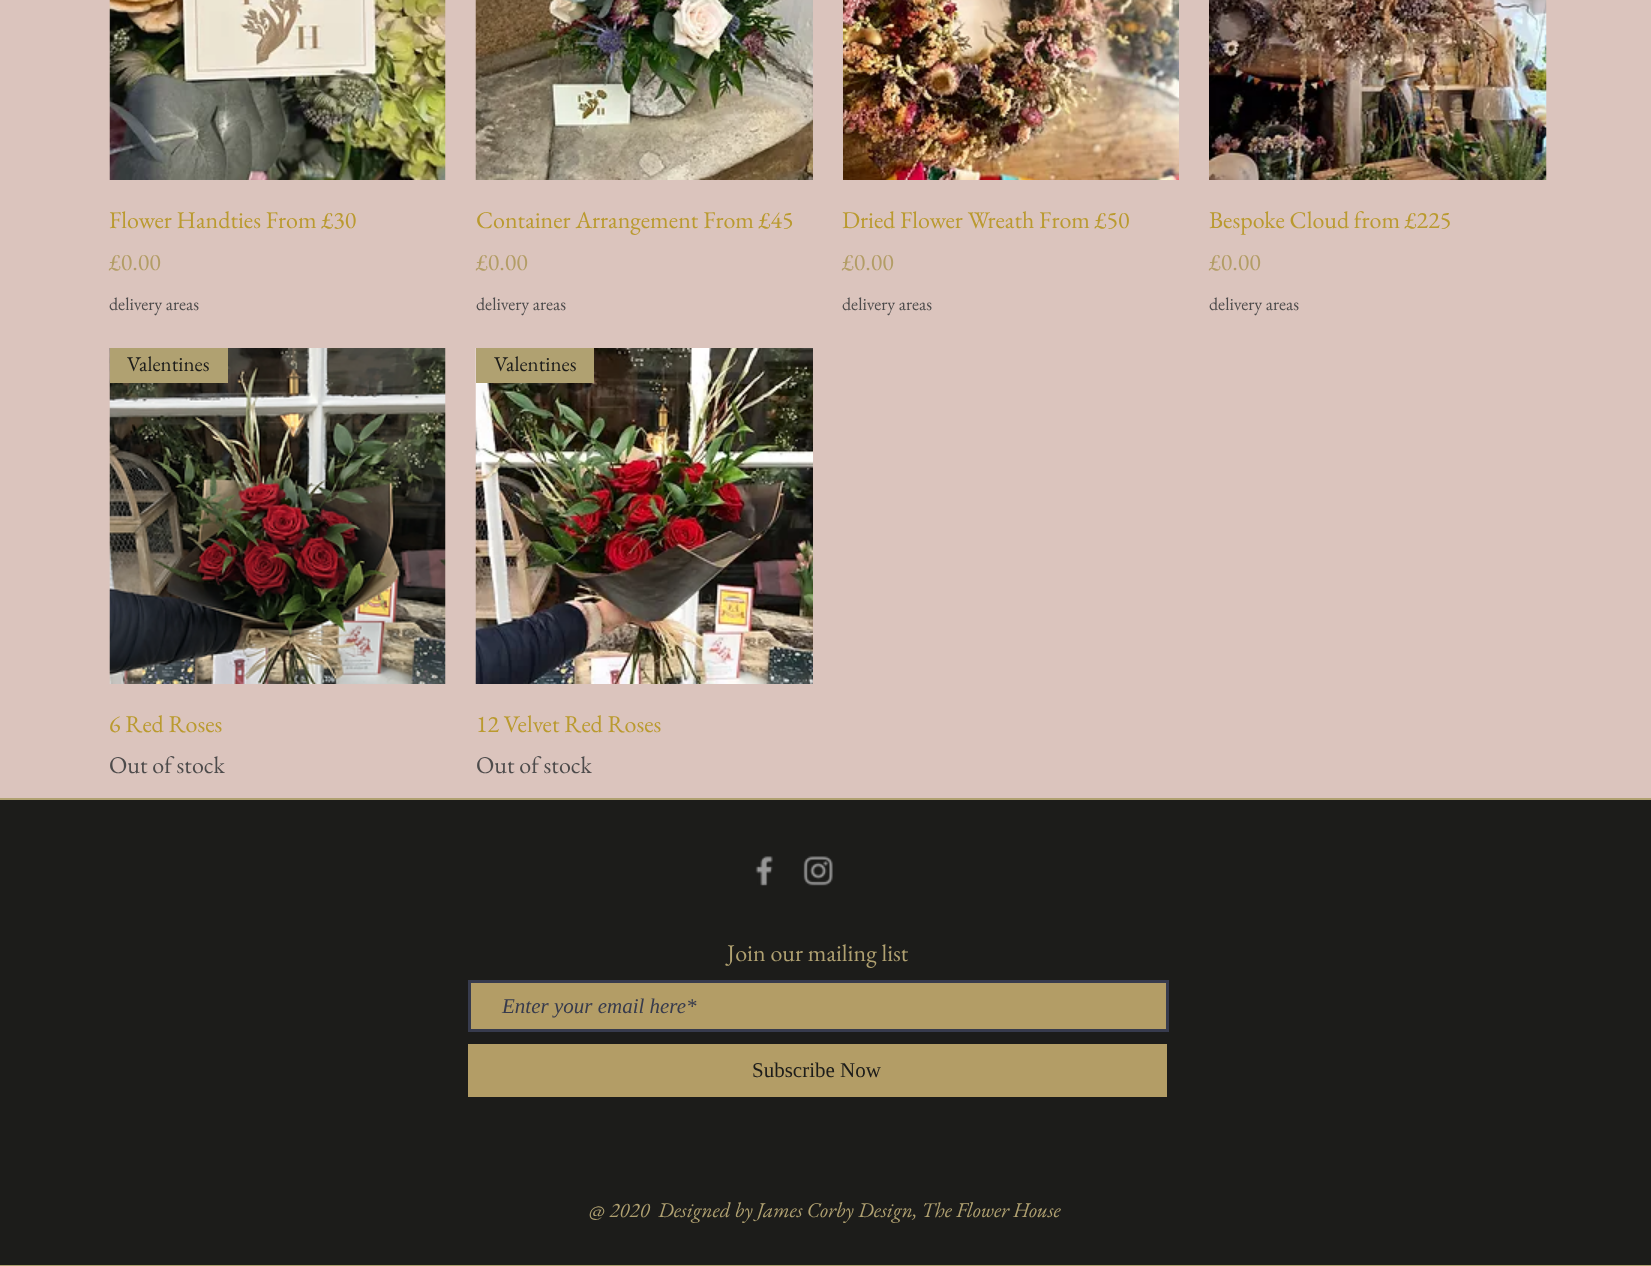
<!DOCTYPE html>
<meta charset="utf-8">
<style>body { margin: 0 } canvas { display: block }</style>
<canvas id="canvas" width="1651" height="1266"></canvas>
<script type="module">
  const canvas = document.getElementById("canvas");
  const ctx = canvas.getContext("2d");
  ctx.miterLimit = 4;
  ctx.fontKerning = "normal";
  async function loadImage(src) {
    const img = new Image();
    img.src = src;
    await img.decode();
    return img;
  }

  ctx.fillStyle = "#dbc4bd";
  ctx.fillRect(0, 0, 1651, 1266);
  ctx.drawImage(await loadImage("img1.png"), 109, 0, 337, 180);
  ctx.font = "24px EB Garamond";
  ctx.fillStyle = "#ba9a2f";
  ctx.fillText("Flower Handties From £30", 109, 228);
  ctx.fillStyle = "#b39d66";
  ctx.fillText("£0.00", 109, 270);
  ctx.font = "18px EB Garamond";
  ctx.fillStyle = "#4d4b4b";
  ctx.fillText("delivery areas", 109, 310);
  ctx.drawImage(await loadImage("img2.png"), 475, 0, 338, 180);
  ctx.font = "24px EB Garamond";
  ctx.fillStyle = "#ba9a2f";
  ctx.fillText("Container Arrangement From £45", 476, 228);
  ctx.fillStyle = "#b39d66";
  ctx.fillText("£0.00", 476, 270);
  ctx.font = "18px EB Garamond";
  ctx.fillStyle = "#4d4b4b";
  ctx.fillText("delivery areas", 476, 310);
  ctx.drawImage(await loadImage("img3.png"), 843, 0, 336, 180);
  ctx.font = "24px EB Garamond";
  ctx.fillStyle = "#ba9a2f";
  ctx.fillText("Dried Flower Wreath From £50", 842, 228);
  ctx.fillStyle = "#b39d66";
  ctx.fillText("£0.00", 842, 270);
  ctx.font = "18px EB Garamond";
  ctx.fillStyle = "#4d4b4b";
  ctx.fillText("delivery areas", 842, 310);
  ctx.drawImage(await loadImage("img4.png"), 1209, 0, 338, 180);
  ctx.font = "24px EB Garamond";
  ctx.fillStyle = "#ba9a2f";
  ctx.fillText("Bespoke Cloud from £225", 1209, 228);
  ctx.fillStyle = "#b39d66";
  ctx.fillText("£0.00", 1209, 270);
  ctx.font = "18px EB Garamond";
  ctx.fillStyle = "#4d4b4b";
  ctx.fillText("delivery areas", 1209, 310);
  ctx.drawImage(await loadImage("img5.png"), 109, 348, 337, 336);
  ctx.fillStyle = "#b0a171";
  ctx.fillRect(110, 348, 118, 35);
  ctx.font = "21px EB Garamond";
  ctx.fillStyle = "#1c1c1a";
  ctx.fillText("Valentines", 127, 371);
  ctx.font = "24px EB Garamond";
  ctx.fillStyle = "#ba9a2f";
  ctx.fillText("6 Red Roses", 109, 732);
  ctx.fillStyle = "#4d4b4b";
  ctx.fillText("Out of stock", 109, 773);
  ctx.drawImage(await loadImage("img6.png"), 475, 348, 338, 336);
  ctx.fillStyle = "#b0a171";
  ctx.fillRect(476, 348, 118, 35);
  ctx.font = "21px EB Garamond";
  ctx.fillStyle = "#1c1c1a";
  ctx.fillText("Valentines", 494, 371);
  ctx.font = "24px EB Garamond";
  ctx.fillStyle = "#ba9a2f";
  ctx.fillText("12 Velvet Red Roses", 476, 732);
  ctx.fillStyle = "#4d4b4b";
  ctx.fillText("Out of stock", 476, 773);
  ctx.fillStyle = "#b0a171";
  ctx.fillRect(0, 798, 1651, 2);
  ctx.fillRect(0, 1265, 1651, 1);
  ctx.fillStyle = "#1c1c1a";
  ctx.fillRect(0, 800, 1651, 465);
  ctx.drawImage(await loadImage("img7.png"), 755, 856, 18, 30);
  ctx.drawImage(await loadImage("img8.png"), 803, 856, 30, 30);
  ctx.fillStyle = "#b0a171";
  ctx.fillText("Join our mailing list", 727, 961);
  ctx.fillStyle = "#b39d66";
  ctx.beginPath();
  ctx.rect(469.5, 981.5, 698, 49);
  ctx.fill();
  ctx.strokeStyle = "#373b4d";
  ctx.lineWidth = 3;
  ctx.stroke();
  ctx.font = "italic 21px Liberation Serif";
  ctx.fillStyle = "#373b4d";
  ctx.fillText("Enter your email here*", 502, 1013);
  ctx.fillStyle = "#b39d66";
  ctx.fillRect(468, 1044, 699, 53);
  ctx.font = "21px Liberation Serif";
  ctx.fillStyle = "#1c1c1a";
  ctx.fillText("Subscribe Now", 752, 1077);
  ctx.font = "italic 21px EB Garamond";
  ctx.fillStyle = "#b0a171";
  ctx.fillText("@ 2020  Designed by James Corby Design, The Flower House", 589, 1217);
</script>
